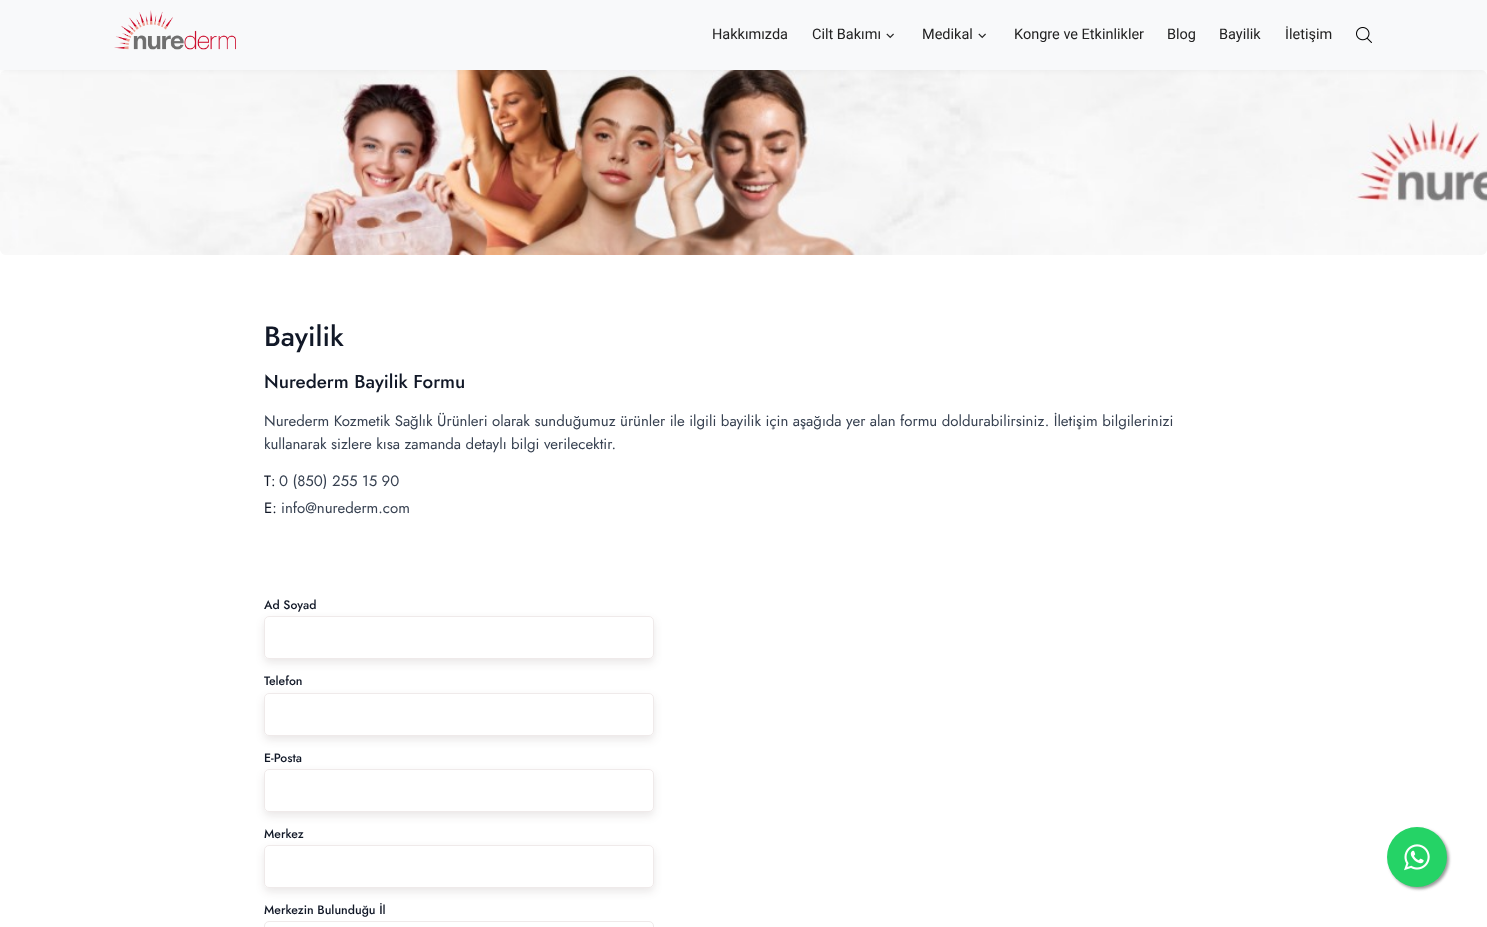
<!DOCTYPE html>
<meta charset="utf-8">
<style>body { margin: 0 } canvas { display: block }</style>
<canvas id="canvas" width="1487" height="927"></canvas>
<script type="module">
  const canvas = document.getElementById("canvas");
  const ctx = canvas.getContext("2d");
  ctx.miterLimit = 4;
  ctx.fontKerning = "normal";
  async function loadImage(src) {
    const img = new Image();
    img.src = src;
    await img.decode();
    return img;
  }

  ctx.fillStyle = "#ffffff";
  ctx.fillRect(0, 0, 1487, 927);
  ctx.drawImage(await loadImage("img4.png"), 0, 70, 1487, 185);
  ctx.fillStyle = "rgba(0, 0, 0, 0.04)";
  ctx.filter = "blur(2.5px)";
  ctx.beginPath();
  ctx.rect(0, 1, 1487, 70);
  ctx.fill();
  ctx.filter = "none";
  ctx.fillStyle = "#f8f9fa";
  ctx.fillRect(0, 0, 1487, 70);
  ctx.drawImage(await loadImage("img1.png"), 114, 10, 122, 40);
  ctx.font = "14.5px Roboto";
  ctx.fillStyle = "#222222";
  ctx.fillText("Hakkımızda", 712, 39);
  ctx.fillText("Cilt Bakımı", 812, 39);
  ctx.drawImage(await loadImage("img2.png"), 886, 33, 8, 6);
  ctx.fillText("Medikal", 922, 39);
  ctx.drawImage(await loadImage("img2.png"), 978, 33, 8, 6);
  ctx.fillText("Kongre ve Etkinlikler", 1014, 39);
  ctx.fillText("Blog", 1167, 39);
  ctx.fillText("Bayilik", 1219, 39);
  ctx.fillText("İletişim", 1285, 39);
  ctx.drawImage(await loadImage("img3.png"), 1356, 27, 16, 16);
  ctx.font = "500 28px Jost";
  ctx.fillStyle = "#111827";
  ctx.fillText("Bayilik", 264, 346);
  ctx.font = "500 18.75px Jost";
  ctx.fillText("Nurederm Bayilik Formu", 264, 388);
  ctx.font = "15px Jost";
  ctx.fillStyle = "#374151";
  ctx.fillText("Nurederm Kozmetik Sağlık Ürünleri olarak sunduğumuz ürünler ile ilgili bayilik için aşağıda yer alan formu doldurabilirsiniz. İletişim bilgilerinizi", 264, 426);
  ctx.fillText("kullanarak sizlere kısa zamanda detaylı bilgi verilecektir.", 264, 449);
  ctx.fillStyle = "#111827";
  ctx.fillText("T:", 264, 486);
  ctx.fillStyle = "#374151";
  ctx.fillText("0 (850) 255 15 90", 279, 486);
  ctx.fillStyle = "#111827";
  ctx.fillText("E:", 264, 513);
  ctx.fillStyle = "#374151";
  ctx.fillText("info@nurederm.com", 281, 513);
  ctx.font = "500 12.25px Jost";
  ctx.fillStyle = "#111827";
  ctx.fillText("Ad Soyad", 264, 609);
  ctx.fillStyle = "rgba(50, 25, 25, 0.1)";
  ctx.filter = "blur(4px)";
  ctx.beginPath();
  ctx.roundRect(264, 620, 390, 43, 5);
  ctx.fill();
  ctx.filter = "none";
  ctx.fillStyle = "#ffffff";
  ctx.beginPath();
  ctx.roundRect(264, 616, 390, 43, 5);
  ctx.fill();
  ctx.beginPath();
  ctx.roundRect(264.5, 616.5, 389, 42, 4.5);
  ctx.strokeStyle = "rgba(231, 223, 223, 0.66)";
  ctx.stroke();
  ctx.fillStyle = "#111827";
  ctx.fillText("Telefon", 264, 685);
  ctx.fillStyle = "rgba(50, 25, 25, 0.1)";
  ctx.filter = "blur(4px)";
  ctx.beginPath();
  ctx.roundRect(264, 697, 390, 43, 5);
  ctx.fill();
  ctx.filter = "none";
  ctx.fillStyle = "#ffffff";
  ctx.beginPath();
  ctx.roundRect(264, 693, 390, 43, 5);
  ctx.fill();
  ctx.beginPath();
  ctx.roundRect(264.5, 693.5, 389, 42, 4.5);
  ctx.stroke();
  ctx.fillStyle = "#111827";
  ctx.fillText("E-Posta", 264, 762);
  ctx.fillStyle = "rgba(50, 25, 25, 0.1)";
  ctx.filter = "blur(4px)";
  ctx.beginPath();
  ctx.roundRect(264, 773, 390, 43, 5);
  ctx.fill();
  ctx.filter = "none";
  ctx.fillStyle = "#ffffff";
  ctx.beginPath();
  ctx.roundRect(264, 769, 390, 43, 5);
  ctx.fill();
  ctx.beginPath();
  ctx.roundRect(264.5, 769.5, 389, 42, 4.5);
  ctx.stroke();
  ctx.fillStyle = "#111827";
  ctx.fillText("Merkez", 264, 838);
  ctx.fillStyle = "rgba(50, 25, 25, 0.1)";
  ctx.filter = "blur(4px)";
  ctx.beginPath();
  ctx.roundRect(264, 849, 390, 43, 5);
  ctx.fill();
  ctx.filter = "none";
  ctx.fillStyle = "#ffffff";
  ctx.beginPath();
  ctx.roundRect(264, 845, 390, 43, 5);
  ctx.fill();
  ctx.beginPath();
  ctx.roundRect(264.5, 845.5, 389, 42, 4.5);
  ctx.stroke();
  ctx.fillStyle = "#111827";
  ctx.fillText("Merkezin Bulunduğu İl", 264, 914);
  ctx.beginPath();
  ctx.roundRect(264.5, 921.5, 389, 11, 4.5);
  ctx.strokeStyle = "#efeaea";
  ctx.stroke();
  ctx.fillStyle = "#999999";
  ctx.filter = "blur(1.5px)";
  ctx.beginPath();
  ctx.roundRect(1389, 829, 60, 60, 30);
  ctx.fill();
  ctx.filter = "none";
  ctx.fillStyle = "#25d366";
  ctx.beginPath();
  ctx.arc(1417, 857, 30, 0, Math.PI * 2);
  ctx.fill();
  ctx.drawImage(await loadImage("img5.png"), 1404, 844, 26, 27);
</script>
